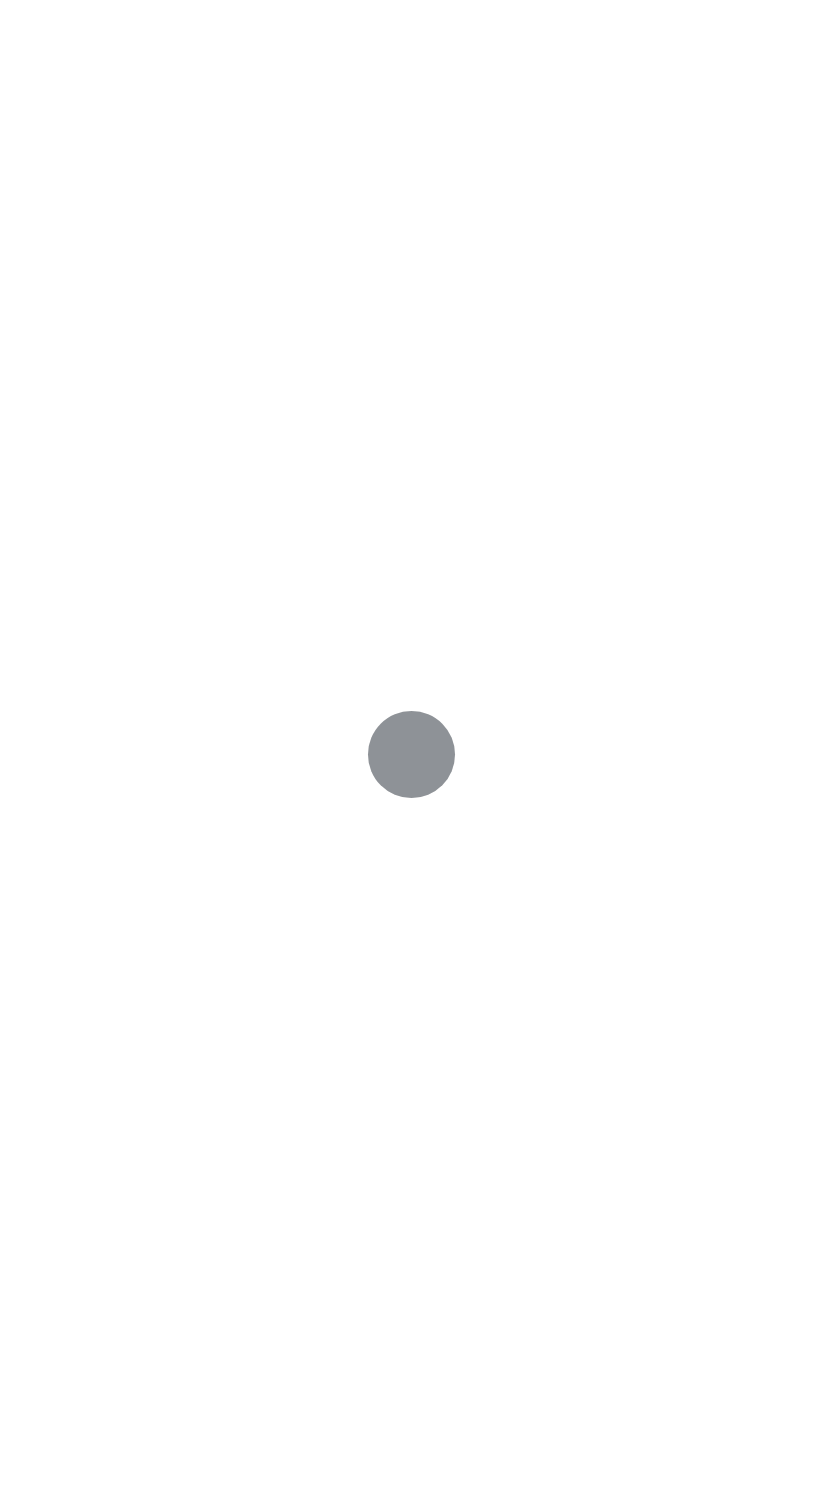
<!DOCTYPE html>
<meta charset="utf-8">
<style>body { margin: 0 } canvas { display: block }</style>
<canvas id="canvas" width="821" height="1507"></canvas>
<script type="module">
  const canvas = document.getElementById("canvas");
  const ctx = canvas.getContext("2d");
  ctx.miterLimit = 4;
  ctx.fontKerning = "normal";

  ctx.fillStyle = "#ffffff";
  ctx.fillRect(0, 0, 821, 1507);
  ctx.fillStyle = "#e2e2e2";
  ctx.beginPath();
  ctx.arc(411.5, 754.5, 43.5, 0, Math.PI * 2);
  ctx.fill();
  ctx.fillStyle = "rgba(86, 94, 102, 0.6)";
  ctx.beginPath();
  ctx.arc(411.5, 754.5, 43.5, 0, Math.PI * 2);
  ctx.fill();
</script>
